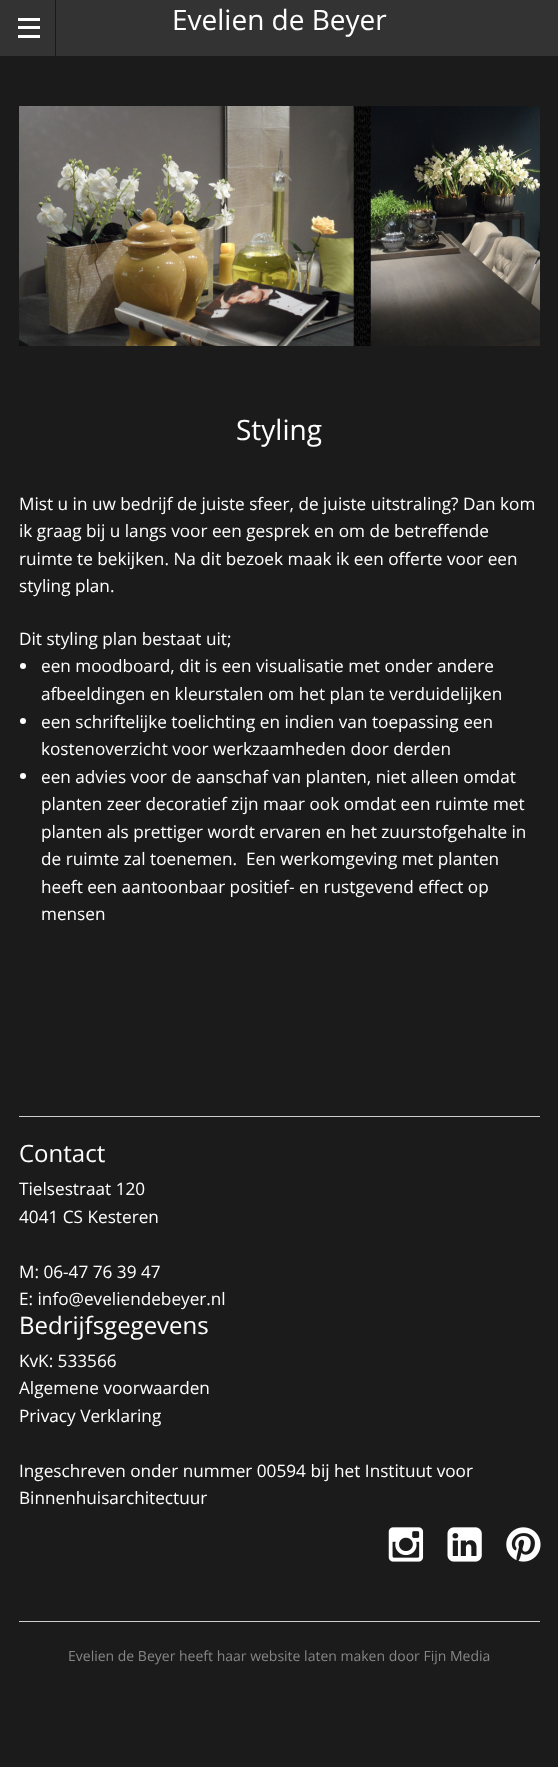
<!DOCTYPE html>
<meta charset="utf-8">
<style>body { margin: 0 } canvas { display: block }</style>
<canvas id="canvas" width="558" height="1767"></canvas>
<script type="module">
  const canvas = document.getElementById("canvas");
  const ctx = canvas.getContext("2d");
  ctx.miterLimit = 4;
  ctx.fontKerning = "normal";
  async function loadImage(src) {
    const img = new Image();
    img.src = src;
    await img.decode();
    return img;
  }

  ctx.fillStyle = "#1b1b1b";
  ctx.fillRect(0, 0, 558, 1767);
  ctx.fillStyle = "#333333";
  ctx.fillRect(0, 0, 558, 56);
  ctx.fillStyle = "#1a1a1a";
  ctx.fillRect(55, 0, 1, 56);
  ctx.fillStyle = "#ffffff";
  ctx.fillRect(18, 35, 22, 3);
  ctx.fillRect(18, 26, 22, 3);
  ctx.fillRect(18, 18, 22, 3);
  ctx.font = "28px Open Sans";
  ctx.fillText("Evelien de Beyer", 172, 30);
  ctx.drawImage(await loadImage("img1.png"), 19, 106, 521, 240);
  ctx.fillText("Styling", 236, 440);
  ctx.font = "17.2px Open Sans";
  ctx.fillText("Mist u in uw bedrijf de juiste sfeer, de juiste uitstraling? Dan kom", 19, 510);
  ctx.fillText("ik graag bij u langs voor een gesprek en om de betreffende", 19, 537);
  ctx.fillText("ruimte te bekijken. Na dit bezoek maak ik een offerte voor een", 19, 565);
  ctx.fillText("styling plan.", 19, 592);
  ctx.fillText("Dit styling plan bestaat uit;", 19, 645);
  ctx.beginPath();
  ctx.arc(23, 666, 3, 0, Math.PI * 2);
  ctx.fill();
  ctx.fillText("een moodboard, dit is een visualisatie met onder andere", 41, 672);
  ctx.fillText("afbeeldingen en kleurstalen om het plan te verduidelijken", 41, 700);
  ctx.beginPath();
  ctx.arc(23, 721, 3, 0, Math.PI * 2);
  ctx.fill();
  ctx.fillText("een schriftelijke toelichting en indien van toepassing een", 41, 728);
  ctx.fillText("kostenoverzicht voor werkzaamheden door derden", 41, 755);
  ctx.beginPath();
  ctx.arc(23, 776, 3, 0, Math.PI * 2);
  ctx.fill();
  ctx.fillText("een advies voor de aanschaf van planten, niet alleen omdat", 41, 783);
  ctx.fillText("planten zeer decoratief zijn maar ook omdat een ruimte met", 41, 810);
  ctx.fillText("planten als prettiger wordt ervaren en het zuurstofgehalte in", 41, 838);
  ctx.fillText("de ruimte zal toenemen.  Een werkomgeving met planten", 41, 865);
  ctx.fillText("heeft een aantoonbaar positief- en rustgevend effect op", 41, 893);
  ctx.fillText("mensen", 41, 920);
  ctx.fillStyle = "#cecece";
  ctx.fillRect(19, 1116, 521, 1);
  ctx.font = "24px Open Sans";
  ctx.fillStyle = "#ffffff";
  ctx.fillText("Contact", 19, 1162);
  ctx.font = "17.2px Open Sans";
  ctx.fillText("Tielsestraat 120", 19, 1195);
  ctx.fillText("4041 CS Kesteren", 19, 1223);
  ctx.fillText("M: 06-47 76 39 47", 19, 1278);
  ctx.fillText("E: info@eveliendebeyer.nl", 19, 1305);
  ctx.font = "24px Open Sans";
  ctx.fillText("Bedrijfsgegevens", 19, 1334);
  ctx.font = "17.2px Open Sans";
  ctx.fillText("KvK: 533566", 19, 1367);
  ctx.fillText("Algemene voorwaarden", 19, 1394);
  ctx.fillText("Privacy Verklaring", 19, 1422);
  ctx.fillText("Ingeschreven onder nummer 00594 bij het Instituut voor", 19, 1477);
  ctx.fillText("Binnenhuisarchitectuur", 19, 1504);
  ctx.drawImage(await loadImage("img2.png"), 388, 1527, 36, 35);
  ctx.drawImage(await loadImage("img3.png"), 447, 1527, 35, 35);
  ctx.drawImage(await loadImage("img4.png"), 506, 1527, 35, 35);
  ctx.fillStyle = "#cecece";
  ctx.fillRect(19, 1621, 521, 1);
  ctx.font = "14px Open Sans";
  ctx.fillStyle = "#868686";
  ctx.fillText("Evelien de Beyer heeft haar website laten maken door Fijn Media", 68, 1661);
</script>
